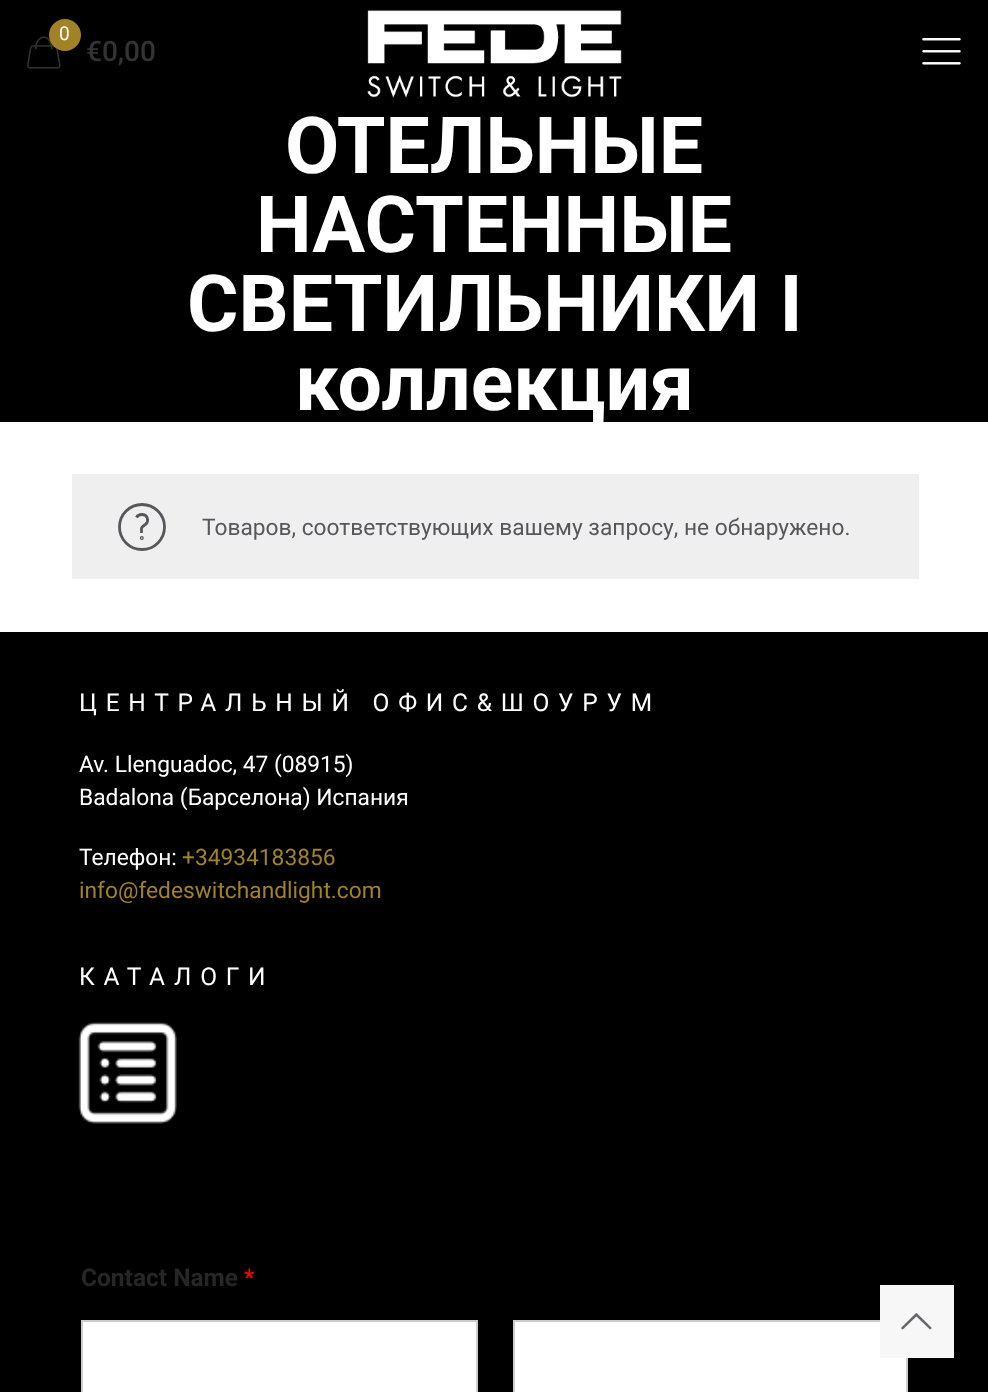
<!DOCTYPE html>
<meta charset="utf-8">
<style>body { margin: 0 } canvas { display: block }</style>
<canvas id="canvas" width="988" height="1392"></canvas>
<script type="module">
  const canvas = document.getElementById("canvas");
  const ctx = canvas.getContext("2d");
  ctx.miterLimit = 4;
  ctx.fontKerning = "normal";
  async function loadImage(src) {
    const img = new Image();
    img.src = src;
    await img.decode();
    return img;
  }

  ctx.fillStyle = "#ffffff";
  ctx.fillRect(0, 0, 988, 1392);
  ctx.fillStyle = "#000000";
  ctx.fillRect(0, 0, 988, 422);
  ctx.drawImage(await loadImage("img1.png"), 27, 36, 34, 33);
  ctx.fillStyle = "#a18226";
  ctx.beginPath();
  ctx.arc(65, 35, 16, 0, Math.PI * 2);
  ctx.fill();
  ctx.font = "19px Roboto";
  ctx.fillStyle = "#ffffff";
  ctx.fillText("0", 59, 40);
  ctx.font = "500 28px Roboto";
  ctx.fillStyle = "#333333";
  ctx.fillText("€0,00", 86, 61);
  ctx.drawImage(await loadImage("img2.png"), 367, 10, 255, 88);
  ctx.drawImage(await loadImage("img3.png"), 922, 38, 39, 27);
  ctx.font = "bold 78.75px Roboto";
  ctx.fillStyle = "#ffffff";
  ctx.fillText("ОТЕЛЬНЫЕ", 285, 173);
  ctx.fillText("НАСТЕННЫЕ", 256, 252);
  ctx.fillText("СВЕТИЛЬНИКИ I", 187, 331);
  ctx.fillText("коллекция", 295, 410);
  ctx.fillStyle = "#efefef";
  ctx.fillRect(72, 474, 847, 105);
  ctx.beginPath();
  ctx.arc(142, 527, 22.5, 0, Math.PI * 2);
  ctx.strokeStyle = "#57575b";
  ctx.lineWidth = 2.8;
  ctx.stroke();
  ctx.beginPath();
  ctx.moveTo(136.5, 517.5);
  ctx.bezierCurveTo(137.5, 515.5, 140, 514.5, 142, 514.5);
  ctx.bezierCurveTo(147, 514.5, 149.5, 520, 146, 524);
  ctx.bezierCurveTo(145, 525, 141.5, 526.5, 141.5, 528.5);
  ctx.lineTo(141.5, 533);
  ctx.stroke();
  ctx.beginPath();
  ctx.arc(141.8, 538, 0.6, 0, Math.PI * 2);
  ctx.stroke();
  ctx.font = "22.75px Roboto";
  ctx.fillStyle = "#57575b";
  ctx.fillText("Товаров, соответствующих вашему запросу, не обнаружено.", 202, 535);
  ctx.fillStyle = "#000000";
  ctx.fillRect(0, 632, 988, 760);
  ctx.letterSpacing = "8.75px";
  ctx.font = "24.5px Roboto";
  ctx.fillStyle = "#ffffff";
  ctx.fillText("ЦЕНТРАЛЬНЫЙ ОФИС&ШОУРУМ", 79, 711);
  ctx.letterSpacing = "0px";
  ctx.font = "22.75px Roboto";
  ctx.fillText("Av. Llenguadoc, 47 (08915)", 79, 772);
  ctx.fillText("Badalona (Барселона) Испания", 79, 805);
  ctx.fillText("Телефон:", 79, 865);
  ctx.fillStyle = "#a18226";
  ctx.fillText("+34934183856", 182, 865);
  ctx.fillText("info@fedeswitchandlight.com", 79, 898);
  ctx.letterSpacing = "8.75px";
  ctx.font = "24.5px Roboto";
  ctx.fillStyle = "#ffffff";
  ctx.fillText("КАТАЛОГИ", 79, 985);
  ctx.drawImage(await loadImage("img4.png"), 78, 1022, 99, 102);
  ctx.letterSpacing = "0px";
  ctx.font = "bold 24.5px Roboto";
  ctx.fillStyle = "#262626";
  ctx.fillText("Contact Name", 81, 1286);
  ctx.font = "24.5px Roboto";
  ctx.fillStyle = "#ff0000";
  ctx.fillText("*", 244, 1286);
  ctx.fillStyle = "#ffffff";
  ctx.beginPath();
  ctx.rect(82, 1321, 395, 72);
  ctx.fill();
  ctx.strokeStyle = "#cccccc";
  ctx.lineWidth = 2;
  ctx.stroke();
  ctx.beginPath();
  ctx.rect(514, 1321, 393, 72);
  ctx.fill();
  ctx.stroke();
  ctx.fillStyle = "#f7f7f7";
  ctx.fillRect(880, 1285, 74, 73);
  ctx.drawImage(await loadImage("img5.png"), 901, 1313, 31, 17);
</script>
